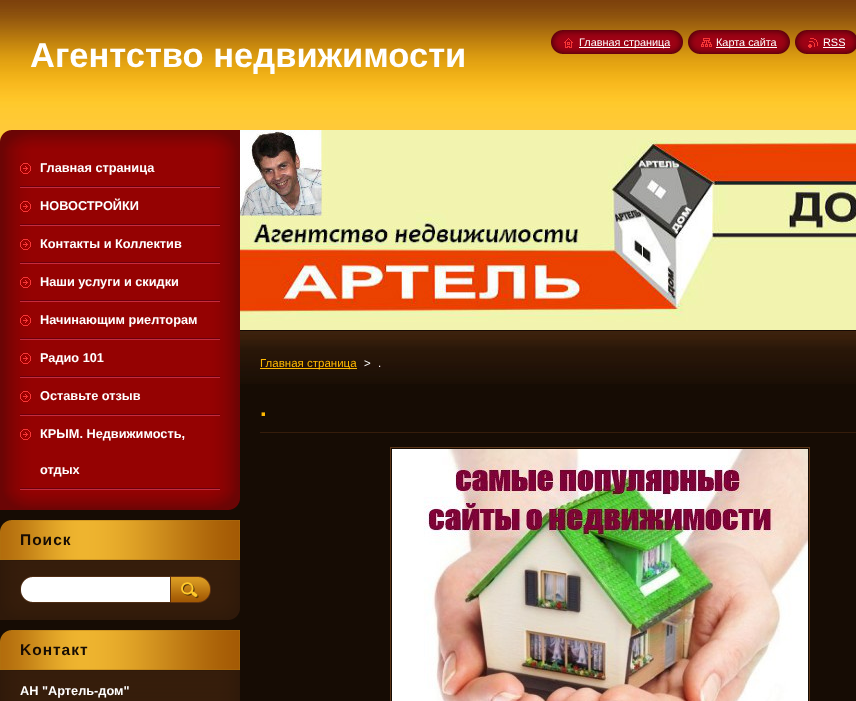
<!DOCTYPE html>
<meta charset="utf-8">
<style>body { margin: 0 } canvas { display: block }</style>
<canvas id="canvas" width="856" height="701"></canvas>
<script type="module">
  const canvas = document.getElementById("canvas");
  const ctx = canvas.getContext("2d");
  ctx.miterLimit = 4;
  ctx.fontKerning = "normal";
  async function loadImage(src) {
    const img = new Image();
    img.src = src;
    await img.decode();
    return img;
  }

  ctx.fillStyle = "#160c04";
  ctx.fillRect(0, 0, 856, 701);
  ctx.drawImage(await loadImage("img1.png"), 0, 0, 856, 384);
  ctx.font = "bold 34.5px Liberation Sans";
  ctx.fillStyle = "#ffffff";
  ctx.fillText("Агентство недвижимости", 30, 67);
  ctx.drawImage(await loadImage("img2.png"), 551, 30, 13, 24);
  ctx.drawImage(await loadImage("img3.png"), 564, 30, 119, 24);
  ctx.drawImage(await loadImage("img4.png"), 564, 38, 9, 10);
  ctx.fillRect(579, 47, 91, 1);
  ctx.font = "10.9px Liberation Sans";
  ctx.fillText("Главная страница", 579, 46);
  ctx.drawImage(await loadImage("img2.png"), 688, 30, 13, 24);
  ctx.drawImage(await loadImage("img5.png"), 701, 30, 89, 24);
  ctx.drawImage(await loadImage("img6.png"), 701, 38, 11, 9);
  ctx.fillRect(716, 47, 61, 1);
  ctx.fillText("Карта сайта", 716, 46);
  ctx.drawImage(await loadImage("img2.png"), 795, 30, 13, 24);
  ctx.drawImage(await loadImage("img7.png"), 808, 30, 48, 24);
  ctx.drawImage(await loadImage("img8.png"), 808, 38, 10, 10);
  ctx.fillText("RSS", 823, 46);
  ctx.fillRect(823, 47, 22, 1);
  ctx.drawImage(await loadImage("img9.png"), 0, 130, 240, 20);
  ctx.drawImage(await loadImage("img10.png"), 0, 490, 240, 20);
  ctx.drawImage(await loadImage("img11.png"), 0, 150, 240, 340);
  ctx.drawImage(await loadImage("img12.png"), 20, 186, 200, 2);
  ctx.drawImage(await loadImage("img13.png"), 20, 163, 11, 11);
  ctx.font = "bold 12.75px Liberation Sans";
  ctx.fillText("Главная страница", 40, 172);
  ctx.drawImage(await loadImage("img12.png"), 20, 224, 200, 2);
  ctx.drawImage(await loadImage("img13.png"), 20, 201, 11, 11);
  ctx.fillText("НОВОСТРОЙКИ", 40, 210);
  ctx.drawImage(await loadImage("img12.png"), 20, 262, 200, 2);
  ctx.drawImage(await loadImage("img13.png"), 20, 239, 11, 11);
  ctx.fillText("Контакты и Коллектив", 40, 248);
  ctx.drawImage(await loadImage("img12.png"), 20, 300, 200, 2);
  ctx.drawImage(await loadImage("img13.png"), 20, 277, 11, 11);
  ctx.fillText("Наши услуги и скидки", 40, 286);
  ctx.drawImage(await loadImage("img12.png"), 20, 338, 200, 2);
  ctx.drawImage(await loadImage("img13.png"), 20, 315, 11, 11);
  ctx.fillText("Начинающим риелторам", 40, 324);
  ctx.drawImage(await loadImage("img12.png"), 20, 376, 200, 2);
  ctx.drawImage(await loadImage("img13.png"), 20, 353, 11, 11);
  ctx.fillText("Радио 101", 40, 362);
  ctx.drawImage(await loadImage("img12.png"), 20, 414, 200, 2);
  ctx.drawImage(await loadImage("img13.png"), 20, 391, 11, 11);
  ctx.fillText("Оставьте отзыв", 40, 400);
  ctx.drawImage(await loadImage("img12.png"), 20, 488, 200, 2);
  ctx.drawImage(await loadImage("img13.png"), 20, 429, 11, 11);
  ctx.fillText("КРЫМ. Недвижимость,", 40, 438);
  ctx.fillText("отдых", 40, 474);
  ctx.drawImage(await loadImage("img14.png"), 0, 603, 240, 17);
  ctx.drawImage(await loadImage("img15.png"), 0, 520, 240, 40);
  ctx.letterSpacing = "1px";
  ctx.font = "bold 15.5px Liberation Sans";
  ctx.fillStyle = "#160c04";
  ctx.fillText("Поиск", 20, 545);
  ctx.drawImage(await loadImage("img16.png"), 0, 561, 240, 42);
  ctx.fillStyle = "#2f1a0a";
  ctx.fillRect(0, 560, 240, 1);
  ctx.drawImage(await loadImage("img17.png"), 20, 576, 150, 27);
  ctx.drawImage(await loadImage("img18.png"), 170, 576, 41, 27);
  ctx.drawImage(await loadImage("img15.png"), 0, 630, 240, 40);
  ctx.fillStyle = "#160c04";
  ctx.fillText("Koнтакт", 20, 655);
  ctx.drawImage(await loadImage("img19.png"), 0, 671, 240, 30);
  ctx.fillStyle = "#2f1a0a";
  ctx.fillRect(0, 670, 240, 1);
  ctx.letterSpacing = "0px";
  ctx.font = "bold 12.75px Liberation Sans";
  ctx.fillStyle = "#ffffff";
  ctx.fillText("АН \"Артель-дом\"", 20, 695);
  ctx.drawImage(await loadImage("img20.png"), 240, 130, 616, 200);
  ctx.fillStyle = "#ffb901";
  ctx.fillRect(260, 368, 97, 1);
  ctx.font = "11.5px Liberation Sans";
  ctx.fillText("Главная страница", 260, 367);
  ctx.fillStyle = "#ffffff";
  ctx.fillText(">", 364, 367);
  ctx.fillText(".", 378, 367);
  ctx.fillStyle = "#361d0b";
  ctx.fillRect(260, 432, 596, 1);
  ctx.font = "bold 24px Liberation Sans";
  ctx.fillStyle = "#ffb901";
  ctx.fillText(".", 260, 416);
  ctx.strokeStyle = "#5b3518";
  ctx.strokeRect(390.5, 447.5, 419, 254);
  ctx.drawImage(await loadImage("img21.png"), 392, 449, 416, 252);
</script>
